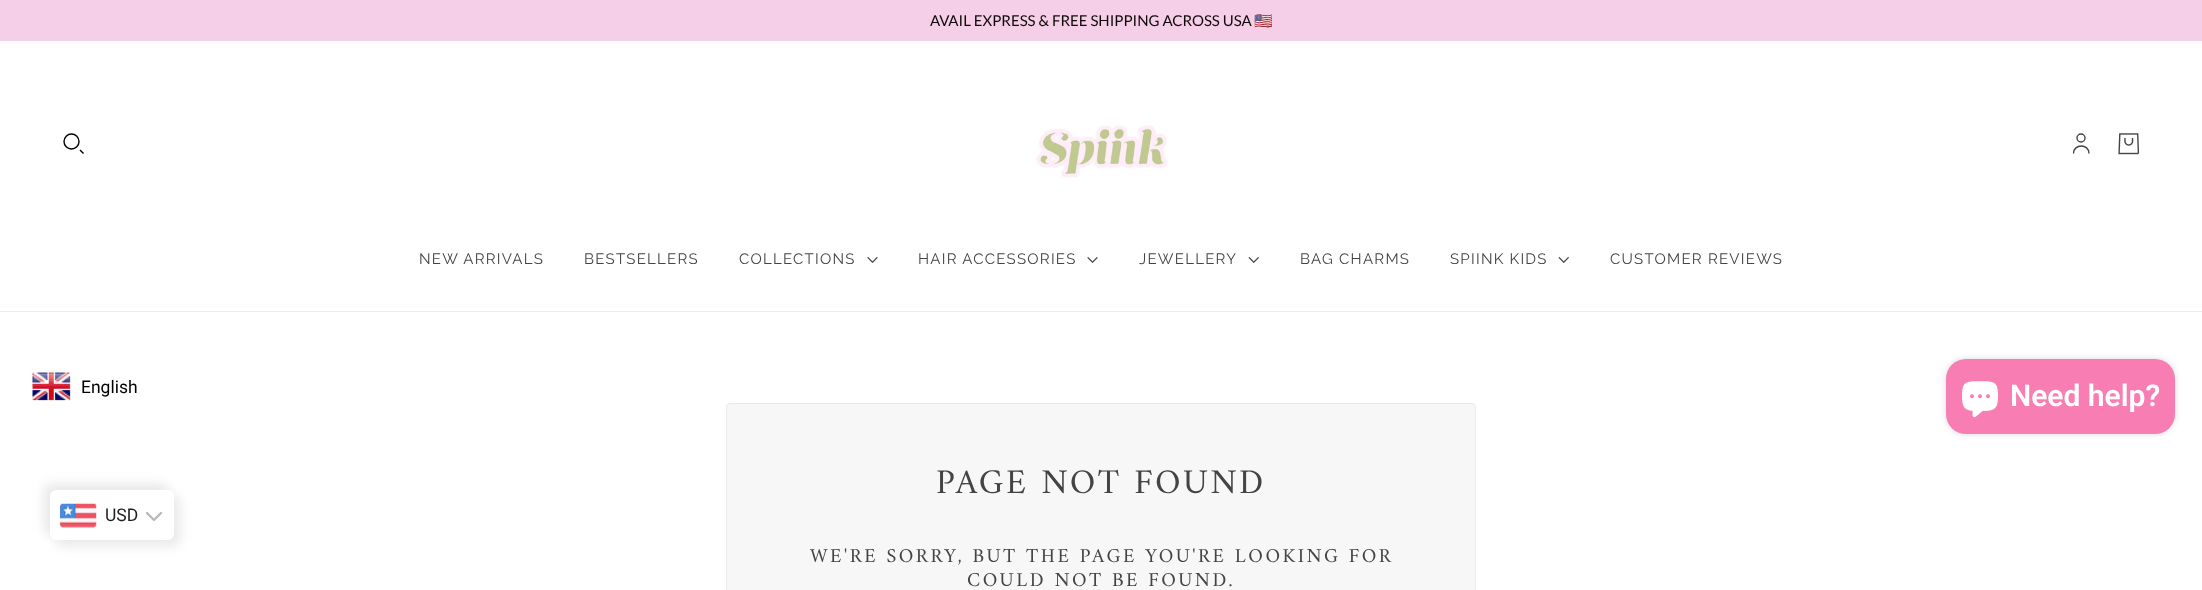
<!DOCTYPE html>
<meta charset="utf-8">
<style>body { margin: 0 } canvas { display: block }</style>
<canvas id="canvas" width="2202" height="590"></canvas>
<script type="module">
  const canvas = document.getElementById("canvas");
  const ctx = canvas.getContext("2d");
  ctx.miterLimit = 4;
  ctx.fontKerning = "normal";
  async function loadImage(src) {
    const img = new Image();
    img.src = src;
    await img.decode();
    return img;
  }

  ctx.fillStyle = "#ffffff";
  ctx.fillRect(0, 0, 2202, 590);
  ctx.fillStyle = "#f5cfe7";
  ctx.fillRect(0, 0, 2202, 41);
  ctx.font = "15px Lato";
  ctx.fillStyle = "#100909";
  ctx.fillText("AVAIL EXPRESS & FREE SHIPPING ACROSS USA", 930, 26);
  ctx.font = "15px Noto Color Emoji";
  ctx.fillText("🇺🇸", 1254, 26);
  ctx.drawImage(await loadImage("img1.png"), 32, 372, 39, 29);
  ctx.font = "17.5px Roboto";
  ctx.fillStyle = "#000000";
  ctx.fillText("English", 81, 393);
  ctx.beginPath();
  ctx.arc(71.5, 141.5, 7.5, 0, Math.PI * 2);
  ctx.strokeStyle = "#000000";
  ctx.lineWidth = 1.4;
  ctx.stroke();
  ctx.beginPath();
  ctx.moveTo(80, 150);
  ctx.lineTo(83.5, 153.5);
  ctx.stroke();
  ctx.drawImage(await loadImage("img2.png"), 1036, 125, 135, 53);
  ctx.beginPath();
  ctx.arc(2081, 138, 4, 0, Math.PI * 2);
  ctx.strokeStyle = "#444444";
  ctx.stroke();
  ctx.beginPath();
  ctx.moveTo(2073.5, 153.5);
  ctx.bezierCurveTo(2073.5, 143.5, 2089, 143.5, 2089, 153.5);
  ctx.stroke();
  ctx.drawImage(await loadImage("img3.png"), 2118, 133, 22, 22);
  ctx.letterSpacing = "1.25px";
  ctx.font = "15px Raleway";
  ctx.fillStyle = "#444444";
  ctx.fillText("NEW ARRIVALS", 419, 264);
  ctx.fillText("BESTSELLERS", 584, 264);
  ctx.fillText("COLLECTIONS", 739, 264);
  ctx.drawImage(await loadImage("img4.png"), 867, 257, 11, 6);
  ctx.fillText("HAIR ACCESSORIES", 918, 264);
  ctx.drawImage(await loadImage("img4.png"), 1087, 257, 11, 6);
  ctx.fillText("JEWELLERY", 1139, 264);
  ctx.drawImage(await loadImage("img5.png"), 1248, 257, 11, 6);
  ctx.fillText("BAG CHARMS", 1300, 264);
  ctx.fillText("SPIINK KIDS", 1450, 264);
  ctx.drawImage(await loadImage("img5.png"), 1558, 257, 11, 6);
  ctx.fillText("CUSTOMER REVIEWS", 1610, 264);
  ctx.fillStyle = "#ececec";
  ctx.fillRect(0, 311, 2202, 1);
  ctx.fillStyle = "#f7f7f7";
  ctx.beginPath();
  ctx.roundRect(726.5, 403.5, 749, 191, 3.5);
  ctx.fill();
  ctx.strokeStyle = "#eaeaea";
  ctx.lineWidth = 1;
  ctx.stroke();
  ctx.letterSpacing = "2.5px";
  ctx.font = "35px Amiri";
  ctx.fillStyle = "#444444";
  ctx.fillText("PAGE NOT FOUND", 936, 493);
  ctx.font = "20px Amiri";
  ctx.fillText("WE'RE SORRY, BUT THE PAGE YOU'RE LOOKING FOR", 810, 562);
  ctx.fillText("COULD NOT BE FOUND.", 967, 586);
  ctx.fillStyle = "rgba(0, 0, 0, 0.15)";
  ctx.filter = "blur(3px)";
  ctx.beginPath();
  ctx.roundRect(1946, 359, 229, 75, 20);
  ctx.fill();
  ctx.filter = "none";
  ctx.fillStyle = "#f77db3";
  ctx.beginPath();
  ctx.roundRect(1946, 359, 229, 75, 20);
  ctx.fill();
  ctx.drawImage(await loadImage("img6.png"), 1962, 381, 36, 37);
  ctx.letterSpacing = "0px";
  ctx.font = "600 30px Roboto";
  ctx.fillStyle = "#ffffff";
  ctx.fillText("Need help?", 2010, 406);
  ctx.fillStyle = "#e8e8e8";
  ctx.filter = "blur(6px)";
  ctx.beginPath();
  ctx.roundRect(44, 484, 124, 50, 6);
  ctx.fill();
  ctx.filter = "none";
  ctx.filter = "blur(6px)";
  ctx.beginPath();
  ctx.roundRect(56, 496, 124, 50, 6);
  ctx.fill();
  ctx.filter = "none";
  ctx.fillStyle = "#ffffff";
  ctx.beginPath();
  ctx.roundRect(50, 490, 124, 50, 6);
  ctx.fill();
  ctx.drawImage(await loadImage("img7.png"), 60, 503, 37, 25);
  ctx.font = "17.5px Roboto";
  ctx.fillStyle = "#1e1e1e";
  ctx.fillText("USD", 105, 521);
  ctx.beginPath();
  ctx.moveTo(147, 513);
  ctx.lineTo(154, 520);
  ctx.lineTo(161, 513);
  ctx.strokeStyle = "#b7b7b7";
  ctx.lineWidth = 2.3;
  ctx.lineCap = "round";
  ctx.lineJoin = "round";
  ctx.stroke();
</script>
